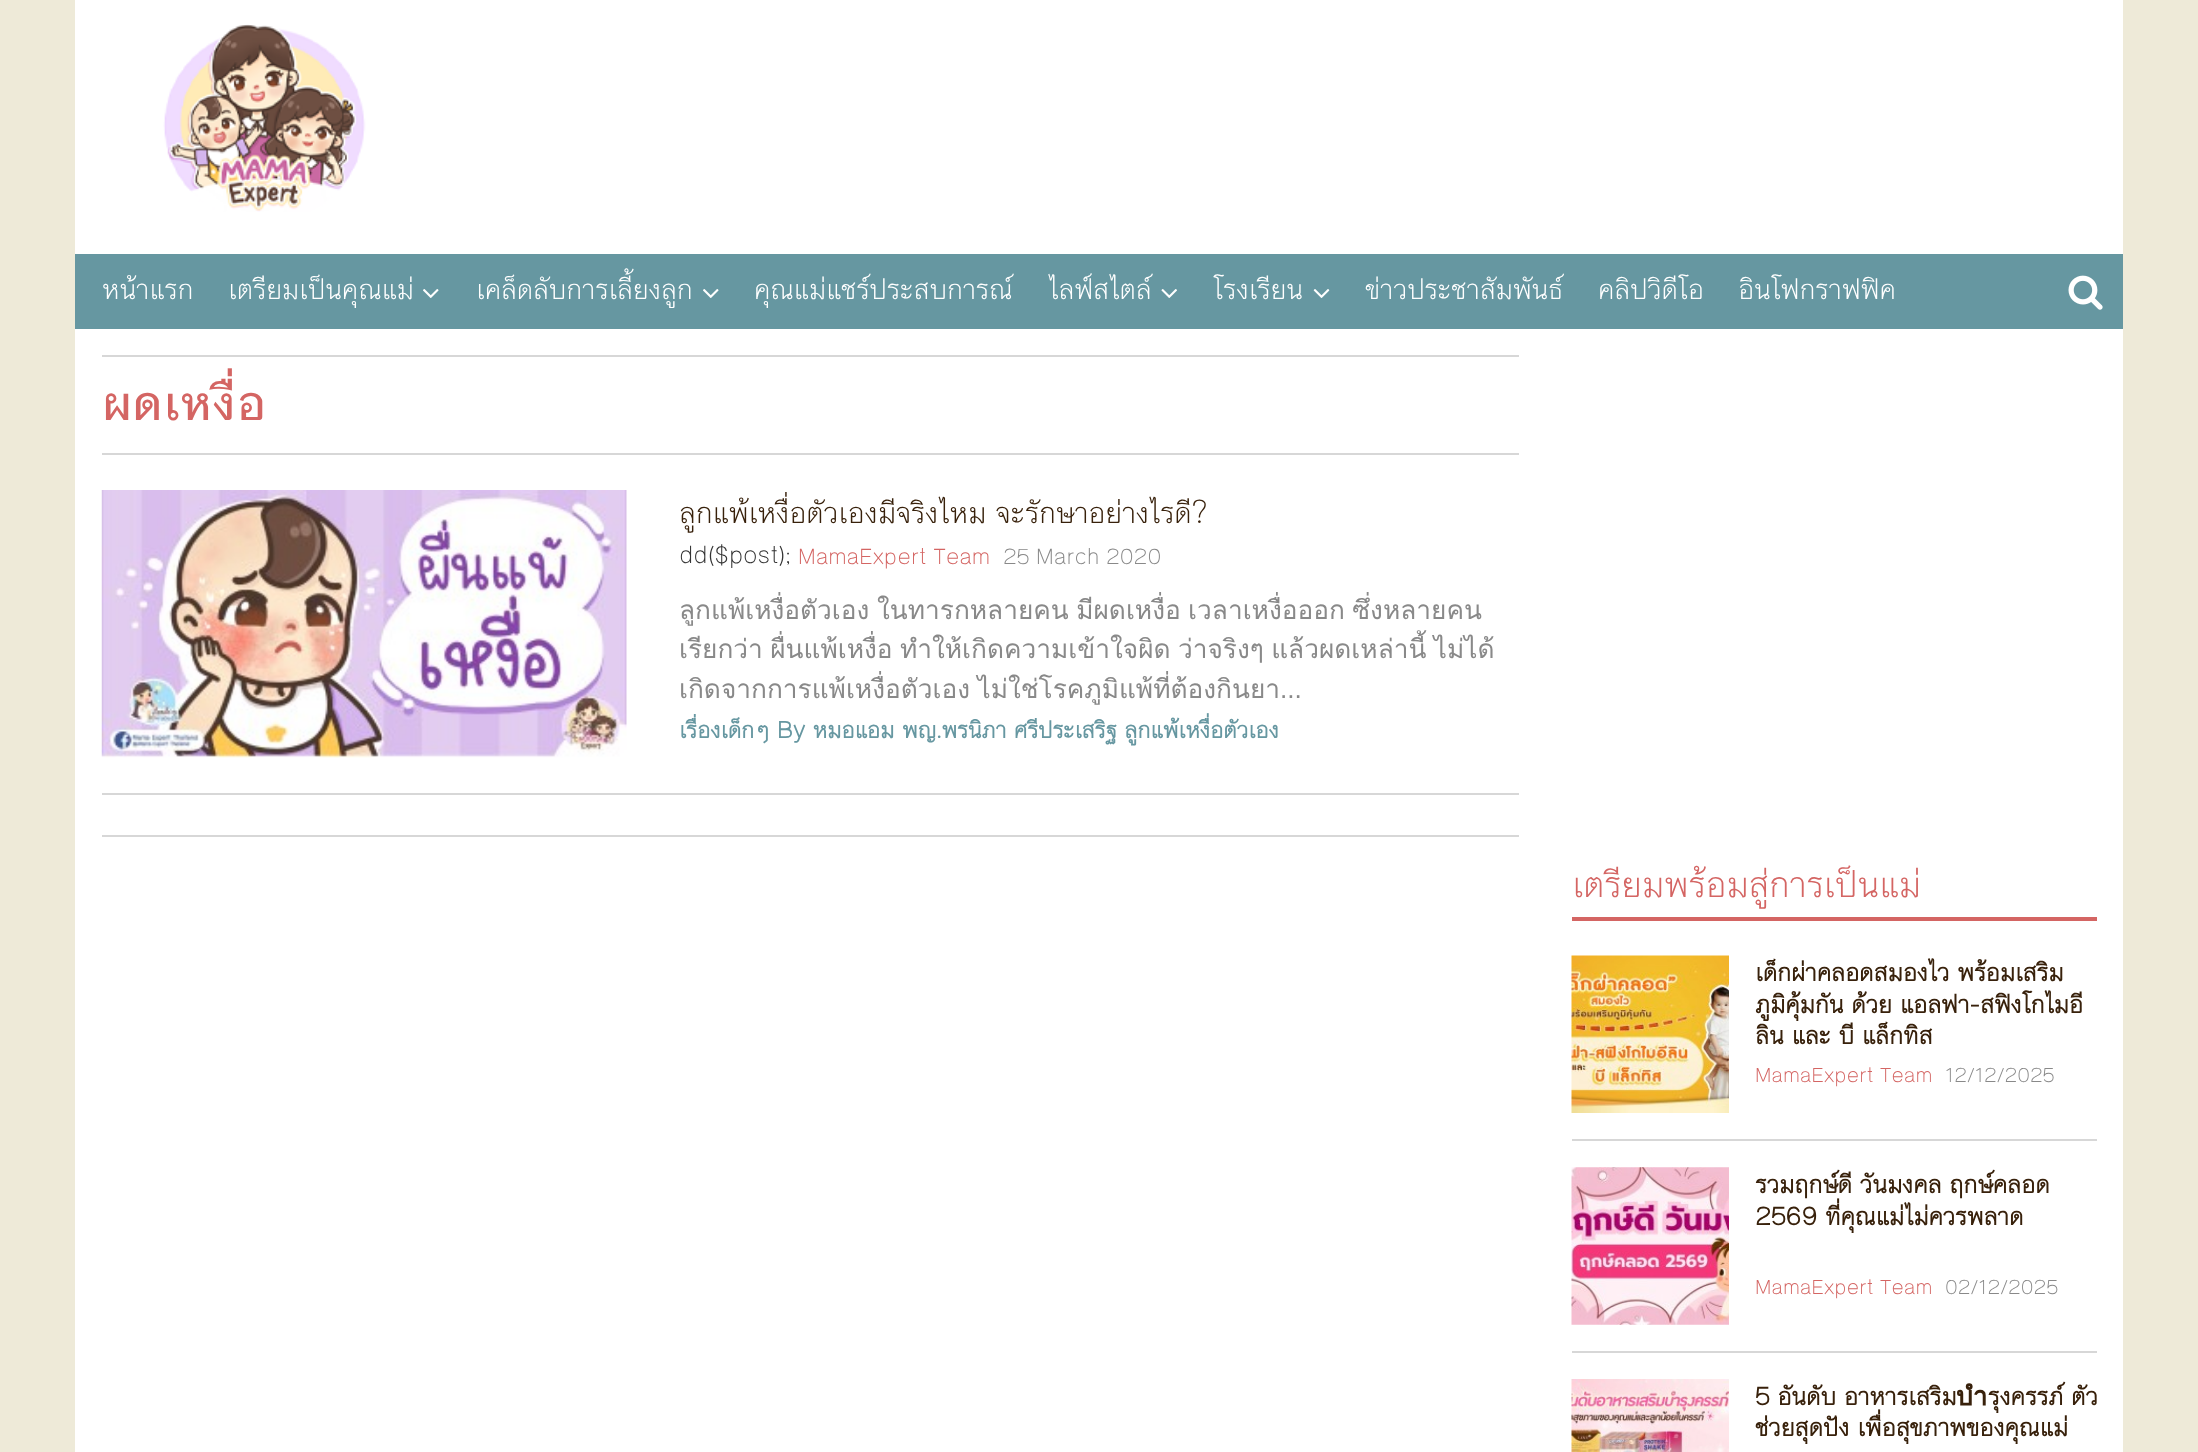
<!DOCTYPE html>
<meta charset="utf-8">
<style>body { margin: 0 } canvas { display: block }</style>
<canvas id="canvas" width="2198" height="1452"></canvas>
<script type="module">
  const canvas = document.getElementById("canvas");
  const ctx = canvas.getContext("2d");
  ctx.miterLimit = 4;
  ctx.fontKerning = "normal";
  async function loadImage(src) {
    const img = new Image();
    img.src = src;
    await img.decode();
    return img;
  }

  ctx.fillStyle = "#eeead8";
  ctx.fillRect(0, 0, 2198, 1452);
  ctx.fillStyle = "#ffffff";
  ctx.fillRect(75, 0, 2048, 1452);
  ctx.drawImage(await loadImage("img1.png"), 163, 24, 203, 188);
  ctx.fillStyle = "#6697a1";
  ctx.fillRect(75, 254, 2048, 75);
  ctx.font = "29.75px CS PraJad";
  ctx.fillStyle = "#ffffff";
  ctx.fillText("หน้าแรก", 102, 299);
  ctx.fillText("เตรียมเป็นคุณแม่", 228, 299);
  ctx.drawImage(await loadImage("img2.png"), 423, 289, 16, 9);
  ctx.fillText("เคล็ดลับการเลี้ยงลูก", 476, 299);
  ctx.drawImage(await loadImage("img2.png"), 703, 289, 16, 9);
  ctx.fillText("คุณแม่แชร์ประสบการณ์", 754, 299);
  ctx.fillText("ไลฟ์สไตล์", 1048, 299);
  ctx.drawImage(await loadImage("img3.png"), 1161, 289, 16, 9);
  ctx.fillText("โรงเรียน", 1213, 299);
  ctx.drawImage(await loadImage("img4.png"), 1313, 289, 17, 9);
  ctx.fillText("ข่าวประชาสัมพันธ์", 1365, 299);
  ctx.fillText("คลิปวิดีโอ", 1598, 299);
  ctx.fillText("อินโฟกราฟฟิค", 1738, 299);
  ctx.drawImage(await loadImage("img5.png"), 2068, 275, 35, 35);
  ctx.fillStyle = "#d7d7d7";
  ctx.fillRect(102, 355, 1417, 2);
  ctx.fillRect(102, 453, 1417, 2);
  ctx.font = "bold 52.5px 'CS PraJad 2'";
  ctx.fillStyle = "#d46563";
  ctx.fillText("ผดเหงื่อ", 102, 420);
  ctx.fillStyle = "#d7d7d7";
  ctx.fillRect(102, 793, 1417, 2);
  ctx.drawImage(await loadImage("img6.png"), 101, 490, 526, 268);
  ctx.font = "31.5px CS PraJad";
  ctx.fillStyle = "#38210b";
  ctx.fillText("ลูกแพ้เหงื่อตัวเองมีจริงไหม จะรักษาอย่างไรดี?", 679, 523);
  ctx.font = "24.5px CS PraJad";
  ctx.fillStyle = "#333333";
  ctx.fillText("dd($post);", 679, 563);
  ctx.font = "22.75px CS PraJad";
  ctx.fillStyle = "#d46563";
  ctx.fillText("MamaExpert Team", 798, 564);
  ctx.fillStyle = "#898989";
  ctx.fillText("25 March 2020", 1003, 564);
  ctx.save();
  ctx.beginPath();
  ctx.rect(679, 592, 840, 113);
  ctx.clip();
  ctx.font = "26.25px Loma";
  ctx.fillText("ลูกแพ้เหงื่อตัวเอง", 679, 619);
  ctx.restore();
  ctx.wordSpacing = "-1.5px";
  ctx.font = "26.25px Loma";
  ctx.fillText("ในทารกหลายคน มีผดเหงื่อ เวลาเหงื่อออก ซึ่งหลายคน", 877, 619);
  ctx.save();
  ctx.beginPath();
  ctx.rect(679, 592, 840, 113);
  ctx.clip();
  ctx.fillText("เรียกว่า ผื่นแพ้เหงื่อ ทำให้เกิดความเข้าใจผิด ว่าจริงๆ แล้วผดเหล่านี้ ไม่ได้", 679, 658);
  ctx.fillText("เกิดจากการแพ้เหงื่อตัวเอง ไม่ใช่โรคภูมิแพ้ที่ต้องกินยา", 679, 698);
  ctx.restore();
  ctx.wordSpacing = "0px";
  ctx.font = "26.25px Liberation Sans";
  ctx.fillText("...", 1280, 698);
  ctx.save();
  ctx.beginPath();
  ctx.rect(679, 714, 840, 35);
  ctx.clip();
  ctx.font = "bold 24.5px CS PraJad";
  ctx.fillStyle = "#6697a1";
  ctx.fillText("เรื่องเด็กๆ By หมอแอม", 679, 738);
  ctx.restore();
  ctx.font = "bold 24.5px CS PraJad";
  ctx.fillStyle = "#6697a1";
  ctx.fillText("พญ.พรนิภา ศรีประเสริฐ ลูกแพ้เหงื่อตัวเอง", 902, 738);
  ctx.fillStyle = "#d7d7d7";
  ctx.fillRect(102, 835, 1417, 2);
  ctx.fillStyle = "#d46563";
  ctx.fillRect(1572, 917, 525, 4);
  ctx.font = "38.5px CS PraJad";
  ctx.fillText("เตรียมพร้อมสู่การเป็นแม่", 1572, 897);
  ctx.fillStyle = "#d7d7d7";
  ctx.fillRect(1572, 1139, 525, 2);
  ctx.drawImage(await loadImage("img7.png"), 1571, 955, 158, 158);
  ctx.save();
  ctx.beginPath();
  ctx.rect(1755, 956, 342, 94);
  ctx.clip();
  ctx.font = "bold 26.25px CS PraJad";
  ctx.fillStyle = "#38210b";
  ctx.fillText("เด็กผ่าคลอดสมองไว พร้อมเสริม", 1755, 981);
  ctx.fillText("ภูมิคุ้มกัน ด้วย แอลฟา-สฟิงโกไมอี", 1755, 1013);
  ctx.fillText("ลิน และ บี แล็กทิส", 1755, 1044);
  ctx.restore();
  ctx.font = "21px CS PraJad";
  ctx.fillStyle = "#d46563";
  ctx.fillText("MamaExpert Team", 1755, 1082);
  ctx.fillStyle = "#898989";
  ctx.fillText("12/12/2025", 1945, 1082);
  ctx.fillStyle = "#d7d7d7";
  ctx.fillRect(1572, 1351, 525, 2);
  ctx.drawImage(await loadImage("img8.png"), 1571, 1167, 158, 158);
  ctx.font = "bold 26.25px CS PraJad";
  ctx.fillStyle = "#38210b";
  ctx.fillText("รวมฤกษ์ดี วันมงคล ฤกษ์คลอด", 1755, 1193);
  ctx.fillText("2569 ที่คุณแม่ไม่ควรพลาด", 1755, 1225);
  ctx.font = "21px CS PraJad";
  ctx.fillStyle = "#d46563";
  ctx.fillText("MamaExpert Team", 1755, 1294);
  ctx.fillStyle = "#898989";
  ctx.fillText("02/12/2025", 1945, 1294);
  ctx.drawImage(await loadImage("img9.png"), 1571, 1379, 158, 73);
  ctx.font = "bold 26.25px CS PraJad";
  ctx.fillStyle = "#38210b";
  ctx.fillText("5 อันดับ อาหารเสริมบำรุงครรภ์ ตัว", 1755, 1405);
  ctx.save();
  ctx.beginPath();
  ctx.rect(1755, 1379, 342, 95);
  ctx.clip();
  ctx.fillText("ช่วยสุดปัง เพื่อสุขภาพของคุณแม่", 1755, 1436);
  ctx.restore();
</script>
